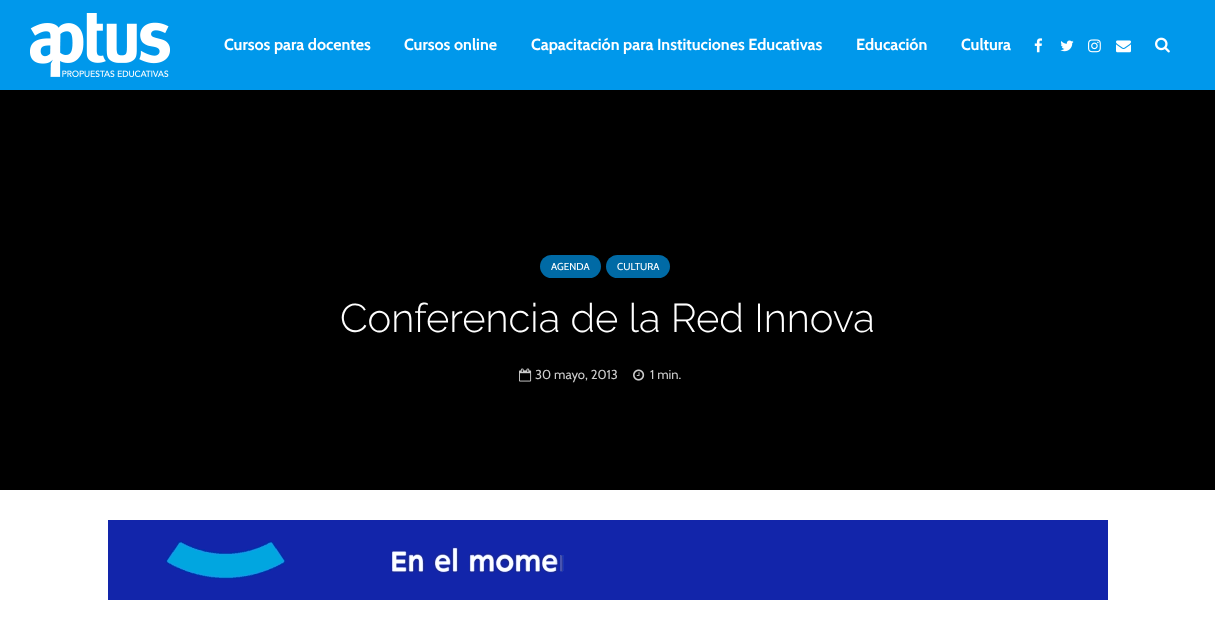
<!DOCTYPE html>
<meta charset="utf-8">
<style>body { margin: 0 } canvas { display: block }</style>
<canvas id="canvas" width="1215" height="636"></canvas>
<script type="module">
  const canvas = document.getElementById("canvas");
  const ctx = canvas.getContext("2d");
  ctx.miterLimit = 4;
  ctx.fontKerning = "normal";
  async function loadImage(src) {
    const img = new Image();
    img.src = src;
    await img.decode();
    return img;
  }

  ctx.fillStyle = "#ffffff";
  ctx.fillRect(0, 0, 1215, 636);
  ctx.fillStyle = "#0098eb";
  ctx.fillRect(0, 0, 1215, 90);
  ctx.drawImage(await loadImage("img1.png"), 30, 13, 140, 64);
  ctx.font = "bold 16px Cabin";
  ctx.fillStyle = "#ffffff";
  ctx.fillText("Cursos para docentes", 224, 50);
  ctx.fillText("Cursos online", 404, 50);
  ctx.fillText("Capacitación para Instituciones Educativas", 531, 50);
  ctx.fillText("Educación", 856, 50);
  ctx.fillText("Cultura", 961, 50);
  ctx.drawImage(await loadImage("img2.png"), 1034, 38, 9, 15);
  ctx.drawImage(await loadImage("img3.png"), 1060, 40, 14, 12);
  ctx.drawImage(await loadImage("img4.png"), 1088, 39, 13, 14);
  ctx.drawImage(await loadImage("img5.png"), 1116, 40, 15, 13);
  ctx.drawImage(await loadImage("img6.png"), 1155, 37, 15, 16);
  ctx.fillStyle = "#000000";
  ctx.fillRect(0, 90, 1215, 400);
  ctx.fillStyle = "#006aa5";
  ctx.beginPath();
  ctx.roundRect(540, 255, 61, 23, 11.5);
  ctx.fill();
  ctx.font = "10px Cabin";
  ctx.fillStyle = "#ffffff";
  ctx.fillText("AGENDA", 551, 270);
  ctx.fillStyle = "#006aa5";
  ctx.beginPath();
  ctx.roundRect(606, 255, 64, 23, 11.5);
  ctx.fill();
  ctx.fillStyle = "#ffffff";
  ctx.fillText("CULTURA", 617, 270);
  ctx.font = "300 40px Raleway";
  ctx.fillText("Conferencia de la Red Innova", 340, 332);
  ctx.drawImage(await loadImage("img7.png"), 519, 368, 13, 14);
  ctx.font = "13px Cabin";
  ctx.fillStyle = "#cccccc";
  ctx.fillText("30 mayo, 2013", 535, 379);
  ctx.drawImage(await loadImage("img8.png"), 633, 369, 12, 12);
  ctx.fillText("1 min.", 650, 379);
  ctx.drawImage(await loadImage("img9.png"), 108, 520, 1000, 80);
</script>
